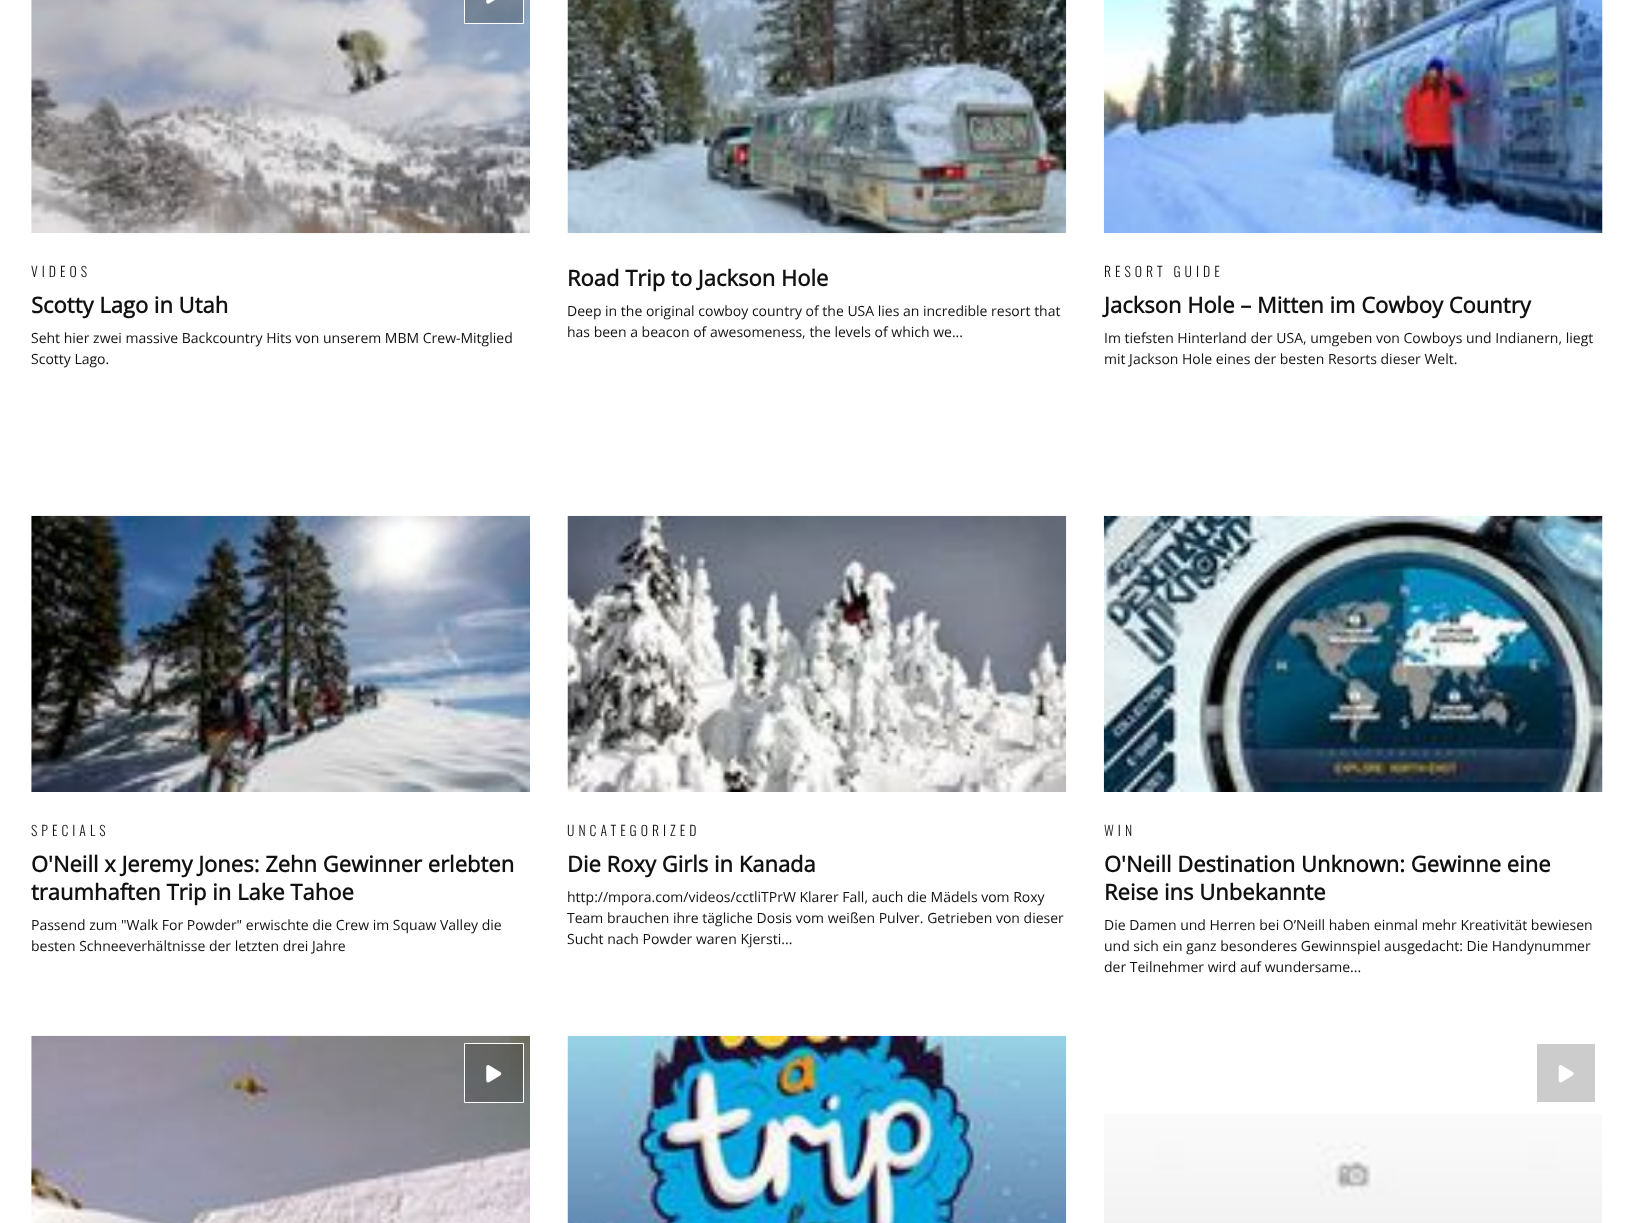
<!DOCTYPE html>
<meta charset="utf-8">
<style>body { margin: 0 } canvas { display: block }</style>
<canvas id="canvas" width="1633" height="1223"></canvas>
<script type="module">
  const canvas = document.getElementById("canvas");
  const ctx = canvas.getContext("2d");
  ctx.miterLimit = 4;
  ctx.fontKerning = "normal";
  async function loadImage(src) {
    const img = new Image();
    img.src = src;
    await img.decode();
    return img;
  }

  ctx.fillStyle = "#ffffff";
  ctx.fillRect(0, 0, 1633, 1223);
  ctx.drawImage(await loadImage("img2.png"), 31, 0, 499, 234);
  ctx.fillStyle = "rgba(0, 0, 0, 0.2)";
  ctx.beginPath();
  ctx.rect(464.5, -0.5, 59, 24);
  ctx.fill();
  ctx.strokeStyle = "#ffffff";
  ctx.stroke();
  ctx.drawImage(await loadImage("img1.png"), 486, 0, 9, 4);
  ctx.letterSpacing = "4px";
  ctx.font = "300 13.75px Oswald";
  ctx.fillStyle = "#111111";
  ctx.fillText("VIDEOS", 31, 277);
  ctx.letterSpacing = "0px";
  ctx.font = "bold 22px Open Sans";
  ctx.fillText("Scotty Lago in Utah", 31, 313);
  ctx.font = "14px Open Sans";
  ctx.fillText("Seht hier zwei massive Backcountry Hits von unserem MBM Crew-Mitglied", 31, 343);
  ctx.fillText("Scotty Lago.", 31, 364);
  ctx.drawImage(await loadImage("img3.png"), 567, 0, 500, 234);
  ctx.font = "bold 22px Open Sans";
  ctx.fillText("Road Trip to Jackson Hole", 567, 286);
  ctx.font = "14px Open Sans";
  ctx.fillText("Deep in the original cowboy country of the USA lies an incredible resort that", 567, 316);
  ctx.fillText("has been a beacon of awesomeness, the levels of which we...", 567, 337);
  ctx.drawImage(await loadImage("img4.png"), 1103, 0, 500, 234);
  ctx.letterSpacing = "4px";
  ctx.font = "300 13.75px Oswald";
  ctx.fillText("RESORT GUIDE", 1104, 277);
  ctx.letterSpacing = "0px";
  ctx.font = "bold 22px Open Sans";
  ctx.fillText("Jackson Hole – Mitten im Cowboy Country", 1104, 313);
  ctx.font = "14px Open Sans";
  ctx.fillText("Im tiefsten Hinterland der USA, umgeben von Cowboys und Indianern, liegt", 1104, 343);
  ctx.fillText("mit Jackson Hole eines der besten Resorts dieser Welt.", 1104, 364);
  ctx.drawImage(await loadImage("img5.png"), 31, 515, 499, 277);
  ctx.letterSpacing = "4px";
  ctx.font = "300 13.75px Oswald";
  ctx.fillText("SPECIALS", 31, 836);
  ctx.letterSpacing = "0px";
  ctx.font = "bold 22px Open Sans";
  ctx.fillText("O'Neill x Jeremy Jones: Zehn Gewinner erlebten", 31, 872);
  ctx.fillText("traumhaften Trip in Lake Tahoe", 31, 900);
  ctx.font = "14px Open Sans";
  ctx.fillText("Passend zum \"Walk For Powder\" erwischte die Crew im Squaw Valley die", 31, 930);
  ctx.fillText("besten Schneeverhältnisse der letzten drei Jahre", 31, 951);
  ctx.drawImage(await loadImage("img6.png"), 567, 515, 500, 277);
  ctx.letterSpacing = "4px";
  ctx.font = "300 13.75px Oswald";
  ctx.fillText("UNCATEGORIZED", 567, 836);
  ctx.letterSpacing = "0px";
  ctx.font = "bold 22px Open Sans";
  ctx.fillText("Die Roxy Girls in Kanada", 567, 872);
  ctx.font = "14px Open Sans";
  ctx.fillText("http://mpora.com/videos/cctliTPrW Klarer Fall, auch die Mädels vom Roxy", 567, 902);
  ctx.fillText("Team brauchen ihre tägliche Dosis vom weißen Pulver. Getrieben von dieser", 567, 923);
  ctx.fillText("Sucht nach Powder waren Kjersti...", 567, 944);
  ctx.drawImage(await loadImage("img7.png"), 1103, 515, 500, 277);
  ctx.letterSpacing = "4px";
  ctx.font = "300 13.75px Oswald";
  ctx.fillText("WIN", 1104, 836);
  ctx.letterSpacing = "0px";
  ctx.font = "bold 22px Open Sans";
  ctx.fillText("O'Neill Destination Unknown: Gewinne eine", 1104, 872);
  ctx.fillText("Reise ins Unbekannte", 1104, 900);
  ctx.font = "14px Open Sans";
  ctx.fillText("Die Damen und Herren bei O’Neill haben einmal mehr Kreativität bewiesen", 1104, 930);
  ctx.fillText("und sich ein ganz besonderes Gewinnspiel ausgedacht: Die Handynummer", 1104, 951);
  ctx.fillText("der Teilnehmer wird auf wundersame...", 1104, 972);
  ctx.drawImage(await loadImage("img8.png"), 31, 1035, 499, 188);
  ctx.fillStyle = "rgba(0, 0, 0, 0.2)";
  ctx.beginPath();
  ctx.rect(464.5, 1043.5, 59, 59);
  ctx.fill();
  ctx.stroke();
  ctx.drawImage(await loadImage("img9.png"), 486, 1065, 16, 18);
  ctx.drawImage(await loadImage("img10.png"), 567, 1035, 500, 188);
  ctx.fillStyle = "#cccccc";
  ctx.fillRect(1537, 1044, 58, 58);
  ctx.drawImage(await loadImage("img11.png"), 1558, 1065, 16, 18);
  ctx.drawImage(await loadImage("img12.png"), 1104, 1114, 498, 109);
</script>
